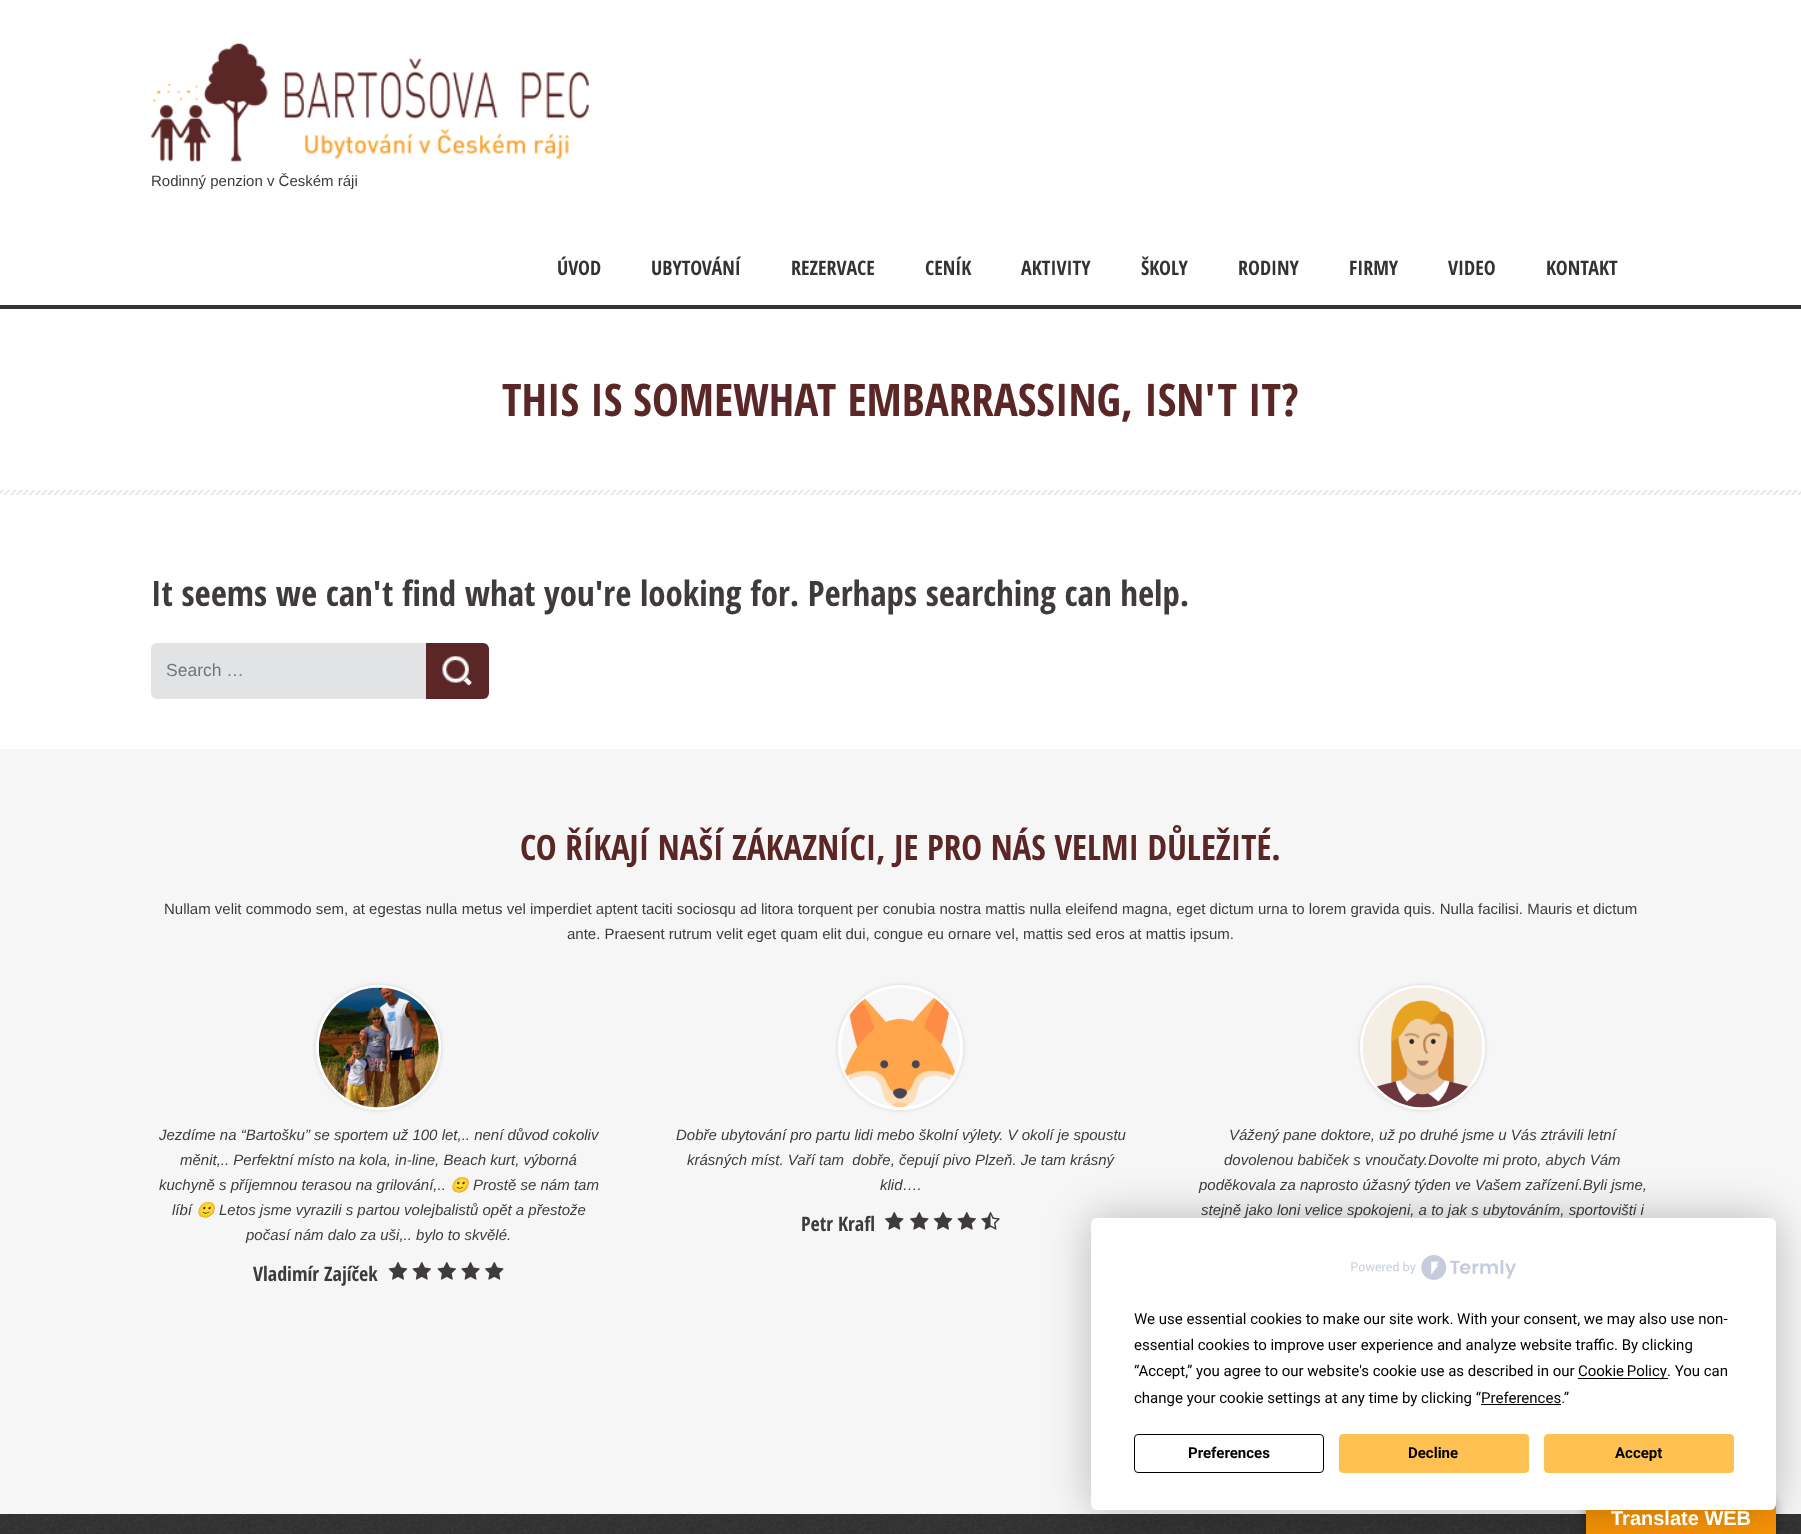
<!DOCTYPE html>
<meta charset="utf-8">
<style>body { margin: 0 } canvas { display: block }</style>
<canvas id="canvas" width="1801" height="1534"></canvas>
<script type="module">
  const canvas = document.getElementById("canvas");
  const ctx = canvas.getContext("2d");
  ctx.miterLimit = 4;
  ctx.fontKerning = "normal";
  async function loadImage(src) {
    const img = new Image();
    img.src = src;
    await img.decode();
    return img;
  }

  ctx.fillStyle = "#ffffff";
  ctx.fillRect(0, 0, 1801, 1534);
  ctx.fillStyle = "#333333";
  ctx.fillRect(0, 305, 1801, 4);
  ctx.drawImage(await loadImage("img1.png"), 151, 43, 438, 119);
  ctx.font = "15px Liberation Sans";
  ctx.fillStyle = "#3f3b3b";
  ctx.fillText("Rodinný penzion v Českém ráji", 151, 186);
  ctx.font = "bold 20px Open Sans Condensed";
  ctx.fillStyle = "#333333";
  ctx.fillText("ÚVOD", 557, 275);
  ctx.fillText("UBYTOVÁNÍ", 651, 275);
  ctx.fillText("REZERVACE", 791, 275);
  ctx.fillText("CENÍK", 925, 275);
  ctx.fillText("AKTIVITY", 1021, 275);
  ctx.fillText("ŠKOLY", 1141, 275);
  ctx.fillText("RODINY", 1238, 275);
  ctx.fillText("FIRMY", 1349, 275);
  ctx.fillText("VIDEO", 1448, 275);
  ctx.fillText("KONTAKT", 1546, 275);
  ctx.font = "bold 45px Open Sans Condensed";
  ctx.fillStyle = "#5a2626";
  ctx.fillText("THIS IS SOMEWHAT EMBARRASSING, ISN'T IT?", 502, 416);
  ctx.drawImage(await loadImage("img2.png"), 0, 490, 1801, 5);
  ctx.font = "bold 35px Open Sans Condensed";
  ctx.fillStyle = "#3f3b3b";
  ctx.fillText("It seems we can't find what you're looking for. Perhaps searching can help.", 151, 606);
  ctx.fillStyle = "#e2e3e4";
  ctx.beginPath();
  ctx.roundRect(151, 643, 338, 56, 6);
  ctx.fill();
  ctx.font = "17.5px Liberation Sans";
  ctx.fillStyle = "#757575";
  ctx.fillText("Search …", 166, 676);
  ctx.fillStyle = "#5a2626";
  ctx.beginPath();
  ctx.roundRect(426, 643, 63, 56, [0, 6, 6, 0]);
  ctx.fill();
  ctx.drawImage(await loadImage("img3.png"), 442, 656, 30, 30);
  ctx.fillStyle = "#f6f6f6";
  ctx.fillRect(0, 749, 1801, 765);
  ctx.font = "bold 35px Open Sans Condensed";
  ctx.fillStyle = "#5a2626";
  ctx.fillText("CO ŘÍKAJÍ NAŠÍ ZÁKAZNÍCI, JE PRO NÁS VELMI DŮLEŽITÉ.", 520, 860);
  ctx.font = "15px Liberation Sans";
  ctx.fillStyle = "#3f3b3b";
  ctx.fillText("Nullam velit commodo sem, at egestas nulla metus vel imperdiet aptent taciti sociosqu ad litora torquent per conubia nostra mattis nulla eleifend magna, eget dictum urna to lorem gravida quis. Nulla facilisi. Mauris et dictum", 164, 914);
  ctx.fillText("ante. Praesent rutrum velit eget quam elit dui, congue eu ornare vel, mattis sed eros at mattis ipsum.", 567, 939);
  ctx.fillStyle = "rgba(0, 0, 0, 0.15)";
  ctx.filter = "blur(2px)";
  ctx.beginPath();
  ctx.roundRect(316, 985, 125, 125, 62.5);
  ctx.fill();
  ctx.filter = "none";
  ctx.beginPath();
  ctx.arc(378.5, 1047.5, 61, 0, Math.PI * 2);
  ctx.strokeStyle = "#ffffff";
  ctx.lineWidth = 3;
  ctx.stroke();
  ctx.drawImage(await loadImage("img4.png"), 318, 987, 121, 121);
  ctx.font = "italic 15px Liberation Sans";
  ctx.fillStyle = "#3f3b3b";
  ctx.fillText("Jezdíme na “Bartošku” se sportem už 100 let,.. není důvod cokoliv", 159, 1140);
  ctx.fillText("měnit,.. Perfektní místo na kola, in-line, Beach kurt, výborná", 180, 1165);
  ctx.fillText("kuchyně s příjemnou terasou na grilování,..", 159, 1190);
  ctx.font = "italic 15px Noto Color Emoji";
  ctx.fillText("🙂", 450, 1190);
  ctx.font = "italic 15px Liberation Sans";
  ctx.fillText("Prostě se nám tam", 473, 1190);
  ctx.fillText("líbí", 172, 1215);
  ctx.font = "italic 15px Noto Color Emoji";
  ctx.fillText("🙂", 196, 1215);
  ctx.font = "italic 15px Liberation Sans";
  ctx.fillText("Letos jsme vyrazili s partou volejbalistů opět a přestože", 219, 1215);
  ctx.fillText("počasí nám dalo za uši,.. bylo to skvělé.", 246, 1240);
  ctx.font = "bold 20px Open Sans Condensed";
  ctx.fillText("Vladimír Zajíček", 253, 1281);
  ctx.drawImage(await loadImage("img5.png"), 388, 1262, 20, 18);
  ctx.drawImage(await loadImage("img6.png"), 412, 1262, 19, 18);
  ctx.drawImage(await loadImage("img6.png"), 437, 1262, 19, 18);
  ctx.drawImage(await loadImage("img7.png"), 461, 1262, 19, 18);
  ctx.drawImage(await loadImage("img8.png"), 485, 1262, 19, 18);
  ctx.save();
  ctx.beginPath();
  ctx.moveTo(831, 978);
  ctx.lineTo(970, 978);
  ctx.lineTo(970, 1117);
  ctx.lineTo(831, 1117);
  ctx.closePath();
  ctx.moveTo(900.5, 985);
  ctx.bezierCurveTo(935, 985, 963, 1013, 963, 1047.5);
  ctx.bezierCurveTo(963, 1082, 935, 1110, 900.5, 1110);
  ctx.bezierCurveTo(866, 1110, 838, 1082, 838, 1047.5);
  ctx.bezierCurveTo(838, 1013, 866, 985, 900.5, 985);
  ctx.closePath();
  ctx.clip("evenodd");
  ctx.fillStyle = "rgba(0, 0, 0, 0.15)";
  ctx.filter = "blur(2px)";
  ctx.beginPath();
  ctx.roundRect(838, 985, 125, 125, 62.5);
  ctx.fill();
  ctx.filter = "none";
  ctx.restore();
  ctx.beginPath();
  ctx.arc(900.5, 1047.5, 61, 0, Math.PI * 2);
  ctx.stroke();
  ctx.drawImage(await loadImage("img9.png"), 845, 998, 110, 110);
  ctx.font = "italic 15px Liberation Sans";
  ctx.fillText("Dobře ubytování pro partu lidi mebo školní výlety. V okolí je spoustu", 676, 1140);
  ctx.fillText("krásných míst. Vaří tam  dobře, čepují pivo Plzeň. Je tam krásný", 687, 1165);
  ctx.fillText("klid….", 880, 1190);
  ctx.font = "bold 20px Open Sans Condensed";
  ctx.fillText("Petr Krafl", 801, 1231);
  ctx.drawImage(await loadImage("img8.png"), 885, 1212, 19, 18);
  ctx.drawImage(await loadImage("img8.png"), 910, 1212, 19, 18);
  ctx.drawImage(await loadImage("img5.png"), 933, 1212, 20, 18);
  ctx.drawImage(await loadImage("img6.png"), 957, 1212, 19, 18);
  ctx.drawImage(await loadImage("img10.png"), 981, 1212, 19, 18);
  ctx.fillStyle = "rgba(0, 0, 0, 0.15)";
  ctx.filter = "blur(2px)";
  ctx.beginPath();
  ctx.roundRect(1360, 985, 125, 125, 62.5);
  ctx.fill();
  ctx.filter = "none";
  ctx.beginPath();
  ctx.arc(1422.5, 1047.5, 61, 0, Math.PI * 2);
  ctx.stroke();
  ctx.drawImage(await loadImage("img11.png"), 1362, 987, 121, 121);
  ctx.font = "italic 15px Liberation Sans";
  ctx.fillStyle = "#3f3b3b";
  ctx.fillText("Vážený pane doktore, už po druhé jsme u Vás ztrávili letní", 1229, 1140);
  ctx.fillText("dovolenou babiček s vnoučaty.Dovolte mi proto, abych Vám", 1224, 1165);
  ctx.fillText("poděkovala za naprosto úžasný týden ve Vašem zařízení.Byli jsme,", 1199, 1190);
  ctx.fillText("stejně jako loni velice spokojeni, a to jak s ubytováním, sportovišti i", 1201, 1215);
  ctx.fillStyle = "#333333";
  ctx.fillRect(0, 1514, 1801, 20);
  ctx.drawImage(await loadImage("img12.png"), 0, 1514, 1799, 20);
  ctx.fillStyle = "rgba(0, 0, 0, 0.3)";
  ctx.filter = "blur(5.5px)";
  ctx.beginPath();
  ctx.rect(1586, 1499, 190, 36);
  ctx.fill();
  ctx.filter = "none";
  ctx.fillStyle = "#f89406";
  ctx.fillRect(1586, 1504, 190, 30);
  ctx.fillStyle = "rgba(0, 0, 0, 0.25)";
  ctx.filter = "blur(22px)";
  ctx.beginPath();
  ctx.roundRect(1091, 1218, 685, 292, 6);
  ctx.fill();
  ctx.filter = "none";
  ctx.fillStyle = "#ffffff";
  ctx.beginPath();
  ctx.roundRect(1091, 1218, 685, 292, 6);
  ctx.fill();
  ctx.drawImage(await loadImage("img13.png"), 1351, 1255, 165, 25);
  ctx.font = "15px Roboto";
  ctx.fillStyle = "#000000";
  ctx.fillText("We use essential cookies to make our site work. With your consent, we may also use non-", 1134, 1324);
  ctx.fillText("essential cookies to improve user experience and analyze website traffic. By clicking", 1134, 1350);
  ctx.fillText("“Accept,” you agree to our website's cookie use as described in our", 1134, 1376);
  ctx.fillRect(1578, 1378, 90, 1);
  ctx.wordSpacing = "-1px";
  ctx.fillText("Cookie Policy", 1578, 1376);
  ctx.wordSpacing = "0px";
  ctx.fillText(". You can", 1667, 1376);
  ctx.fillText("change your cookie settings at any time by clicking “Preferences.”", 1134, 1403);
  ctx.fillRect(1481, 1404, 80, 1);
  ctx.beginPath();
  ctx.roundRect(1134.5, 1434.5, 189, 38, 3.5);
  ctx.strokeStyle = "#000000";
  ctx.lineWidth = 1;
  ctx.stroke();
  ctx.font = "bold 15px Roboto";
  ctx.fillText("Preferences", 1188, 1458);
  ctx.fillStyle = "#ffc252";
  ctx.beginPath();
  ctx.roundRect(1339.5, 1434.5, 189, 38, 3.5);
  ctx.fill();
  ctx.strokeStyle = "#ffc252";
  ctx.stroke();
  ctx.fillStyle = "#000000";
  ctx.fillText("Decline", 1408, 1458);
  ctx.fillStyle = "#ffc252";
  ctx.beginPath();
  ctx.roundRect(1544.5, 1434.5, 189, 38, 3.5);
  ctx.fill();
  ctx.stroke();
  ctx.fillStyle = "#000000";
  ctx.fillText("Accept", 1615, 1458);
  ctx.font = "bold 20px Liberation Sans";
  ctx.fillStyle = "#ffffff";
  ctx.fillText("Translate WEB", 1611, 1525);
</script>
